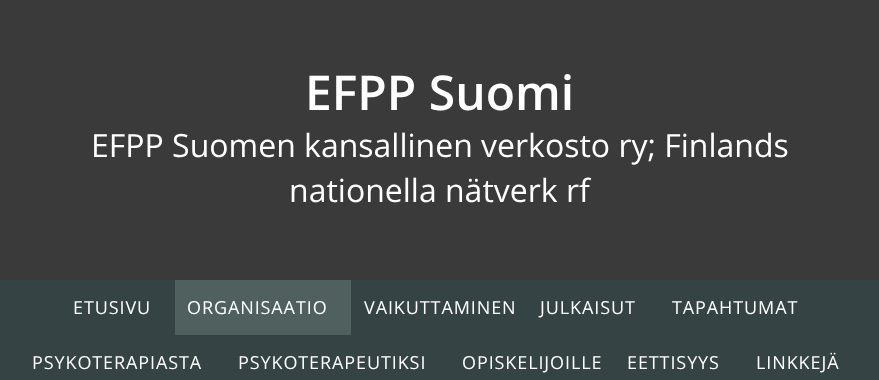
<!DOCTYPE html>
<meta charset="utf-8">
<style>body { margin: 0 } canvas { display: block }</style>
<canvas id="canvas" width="879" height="380"></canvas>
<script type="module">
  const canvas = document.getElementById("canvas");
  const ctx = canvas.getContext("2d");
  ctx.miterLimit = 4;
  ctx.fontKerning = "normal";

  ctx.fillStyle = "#3a3a3a";
  ctx.fillRect(0, 0, 879, 380);
  ctx.font = "600 48px Open Sans";
  ctx.fillStyle = "#ffffff";
  ctx.fillText("EFPP Suomi", 305, 110);
  ctx.font = "32px Open Sans";
  ctx.fillText("EFPP Suomen kansallinen verkosto ry; Finlands", 91, 157);
  ctx.fillText("nationella nätverk rf", 289, 202);
  ctx.fillStyle = "#364344";
  ctx.fillRect(0, 280, 879, 100);
  ctx.letterSpacing = "0.9px";
  ctx.font = "18px Open Sans";
  ctx.fillStyle = "#ffffff";
  ctx.fillText("ETUSIVU", 73, 314);
  ctx.fillStyle = "#50605e";
  ctx.fillRect(175, 280, 176, 55);
  ctx.fillStyle = "#ffffff";
  ctx.fillText("ORGANISAATIO", 187, 314);
  ctx.fillText("VAIKUTTAMINEN", 364, 314);
  ctx.fillText("JULKAISUT", 540, 314);
  ctx.fillText("TAPAHTUMAT", 672, 314);
  ctx.fillText("PSYKOTERAPIASTA", 32, 369);
  ctx.fillText("PSYKOTERAPEUTIKSI", 238, 369);
  ctx.fillText("OPISKELIJOILLE", 462, 369);
  ctx.fillText("EETTISYYS", 627, 369);
  ctx.fillText("LINKKEJÄ", 756, 369);
</script>
